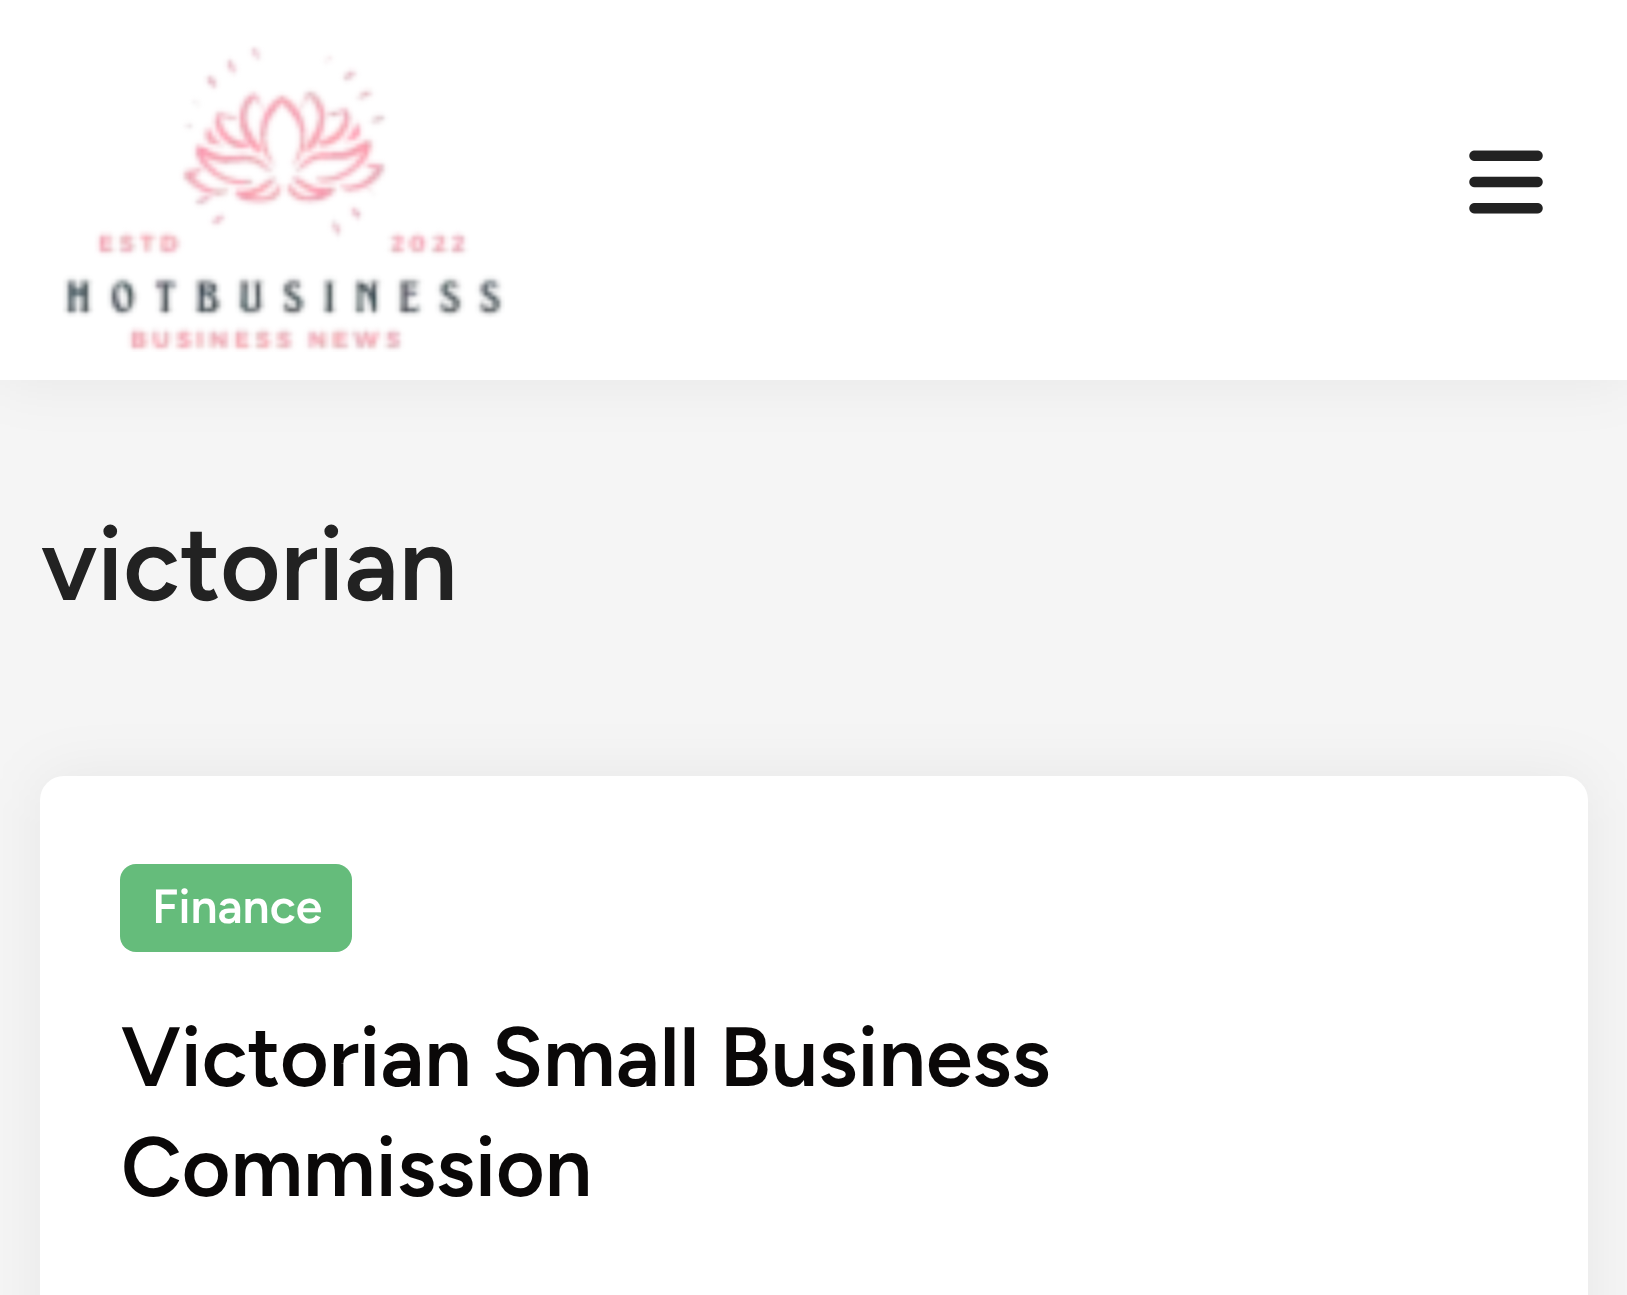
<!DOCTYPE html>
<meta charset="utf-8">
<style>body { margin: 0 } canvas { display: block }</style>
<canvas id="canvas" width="1627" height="1295"></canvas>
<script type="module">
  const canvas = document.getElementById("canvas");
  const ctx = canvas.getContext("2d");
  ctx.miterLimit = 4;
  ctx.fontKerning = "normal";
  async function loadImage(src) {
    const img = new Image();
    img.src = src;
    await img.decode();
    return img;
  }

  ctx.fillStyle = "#f5f5f5";
  ctx.fillRect(0, 0, 1627, 1295);
  ctx.fillStyle = "rgba(0, 0, 0, 0.06)";
  ctx.filter = "blur(30px)";
  ctx.beginPath();
  ctx.rect(0, 0, 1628, 380);
  ctx.fill();
  ctx.filter = "none";
  ctx.fillStyle = "#ffffff";
  ctx.fillRect(0, 0, 1627, 380);
  ctx.drawImage(await loadImage("img1.png"), 62, 45, 443, 307);
  ctx.drawImage(await loadImage("img2.png"), 1469, 150, 74, 64);
  ctx.font = "600 104px Figtree";
  ctx.fillStyle = "#222222";
  ctx.fillText("victorian", 41, 600);
  ctx.fillStyle = "rgba(0, 0, 0, 0.06)";
  ctx.filter = "blur(30px)";
  ctx.beginPath();
  ctx.roundRect(40, 776, 1548, 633, 24);
  ctx.fill();
  ctx.filter = "none";
  ctx.fillStyle = "#ffffff";
  ctx.beginPath();
  ctx.roundRect(40, 776, 1548, 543, 24);
  ctx.fill();
  ctx.fillStyle = "#65bc7b";
  ctx.beginPath();
  ctx.roundRect(120, 864, 232, 88, 16);
  ctx.fill();
  ctx.font = "600 48px Figtree";
  ctx.fillStyle = "#ffffff";
  ctx.fillText("Finance", 152, 923);
  ctx.font = "600 84px Figtree";
  ctx.fillStyle = "#0a0808";
  ctx.fillText("Victorian Small Business", 121, 1086);
  ctx.fillText("Commission", 121, 1196);
</script>
